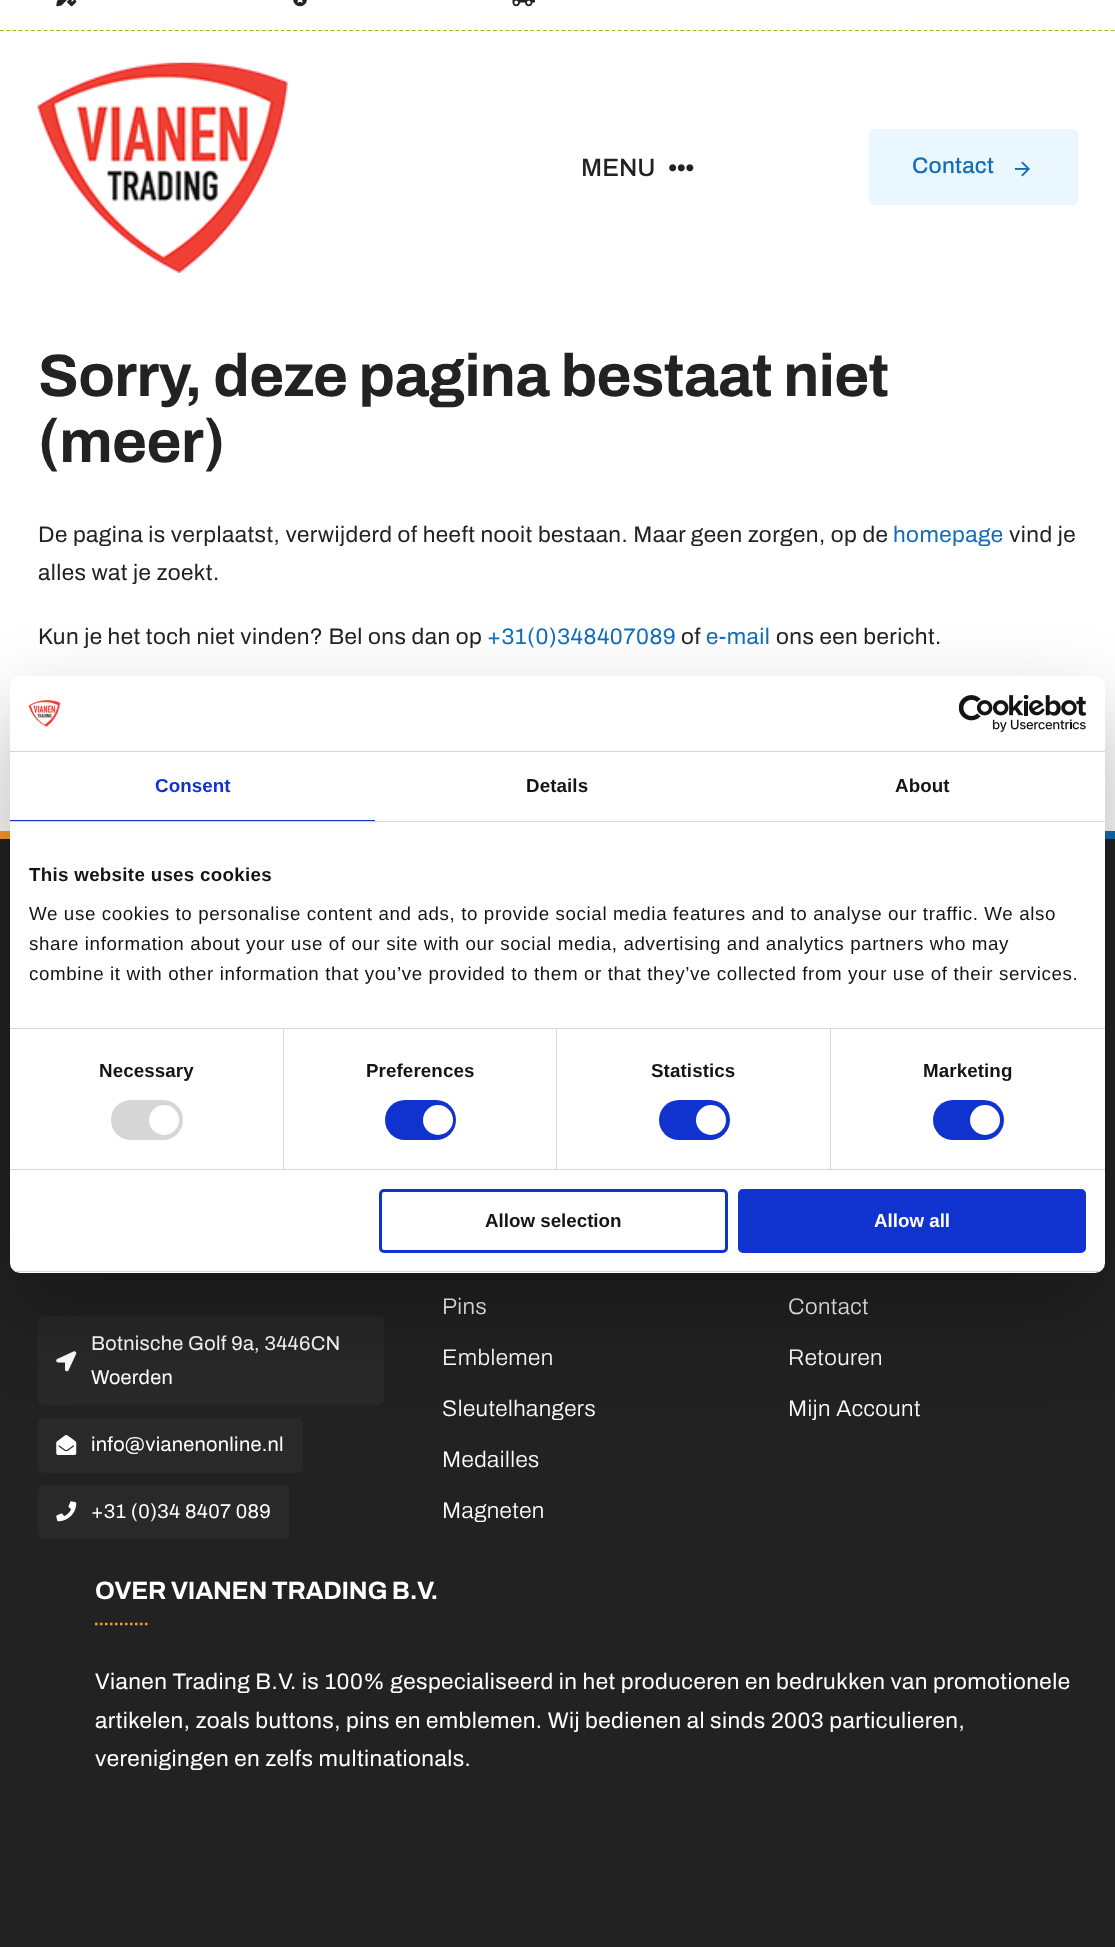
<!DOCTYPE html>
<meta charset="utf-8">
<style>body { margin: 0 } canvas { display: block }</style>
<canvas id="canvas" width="1115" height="1947"></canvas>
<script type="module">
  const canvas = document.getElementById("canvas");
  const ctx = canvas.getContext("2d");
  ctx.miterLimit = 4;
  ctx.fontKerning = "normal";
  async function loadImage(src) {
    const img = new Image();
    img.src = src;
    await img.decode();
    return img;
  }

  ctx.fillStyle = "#ffffff";
  ctx.fillRect(0, 0, 1115, 1947);
  ctx.beginPath();
  ctx.moveTo(0, 30.5);
  ctx.lineTo(1115, 30.5);
  ctx.strokeStyle = "#8bca02";
  ctx.lineWidth = 1.2;
  ctx.setLineDash([3.75, 2.49]);
  ctx.stroke();
  ctx.drawImage(await loadImage("img1.png"), 56, 0, 21, 7);
  ctx.drawImage(await loadImage("img2.png"), 293, 0, 14, 7);
  ctx.drawImage(await loadImage("img3.png"), 512, 0, 23, 7);
  ctx.drawImage(await loadImage("img4.png"), 37, 62, 251, 211);
  ctx.font = "500 25px Archivo";
  ctx.fillStyle = "#222222";
  ctx.fillText("MENU", 581, 176);
  ctx.drawImage(await loadImage("img5.png"), 669, 164, 25, 8);
  ctx.fillStyle = "#ebf7ff";
  ctx.beginPath();
  ctx.roundRect(869, 129, 209, 76, 5);
  ctx.fill();
  ctx.letterSpacing = "0.25px";
  ctx.font = "500 22.5px Archivo";
  ctx.fillStyle = "#126dba";
  ctx.fillText("Contact", 912, 173);
  ctx.drawImage(await loadImage("img6.png"), 1015, 161, 15, 16);
  ctx.letterSpacing = "-0.6px";
  ctx.font = "bold 60px Archivo";
  ctx.fillStyle = "#222222";
  ctx.fillText("Sorry, deze pagina bestaat niet", 38, 396);
  ctx.fillText("(meer)", 38, 462);
  ctx.letterSpacing = "0.45px";
  ctx.font = "22.5px Archivo";
  ctx.fillText("De pagina is verplaatst, verwijderd of heeft nooit bestaan. Maar geen zorgen, op de", 38, 542);
  ctx.fillStyle = "#126dba";
  ctx.fillText("homepage", 893, 542);
  ctx.fillStyle = "#222222";
  ctx.fillText("vind je", 1009, 542);
  ctx.fillText("alles wat je zoekt.", 38, 580);
  ctx.fillText("Kun je het toch niet vinden? Bel ons dan op", 38, 644);
  ctx.fillStyle = "#126dba";
  ctx.fillText("+31(0)348407089", 487, 644);
  ctx.fillStyle = "#222222";
  ctx.fillText("of", 681, 644);
  ctx.fillStyle = "#126dba";
  ctx.fillText("e-mail", 706, 644);
  ctx.fillStyle = "#222222";
  ctx.fillText("ons een bericht.", 776, 644);
  ctx.fillStyle = "#fd9d2a";
  ctx.fillRect(0, 831, 10, 8);
  ctx.fillStyle = "#126dba";
  ctx.fillRect(1105, 831, 10, 8);
  ctx.fillStyle = "#222222";
  ctx.fillRect(0, 839, 1115, 1069);
  ctx.fillStyle = "#292929";
  ctx.beginPath();
  ctx.roundRect(38, 1316, 346, 89, 5);
  ctx.fill();
  ctx.drawImage(await loadImage("img7.png"), 56, 1351, 21, 21);
  ctx.letterSpacing = "0.3px";
  ctx.font = "20px Archivo";
  ctx.fillStyle = "#ffffff";
  ctx.fillText("Botnische Golf 9a, 3446CN", 91, 1350);
  ctx.fillText("Woerden", 91, 1384);
  ctx.fillStyle = "#292929";
  ctx.beginPath();
  ctx.roundRect(38, 1418, 265, 55, 5);
  ctx.fill();
  ctx.drawImage(await loadImage("img8.png"), 56, 1435, 21, 20);
  ctx.fillStyle = "#ffffff";
  ctx.fillText("info@vianenonline.nl", 91, 1451);
  ctx.fillStyle = "#292929";
  ctx.beginPath();
  ctx.roundRect(38, 1485, 251, 54, 5);
  ctx.fill();
  ctx.drawImage(await loadImage("img9.png"), 56, 1501, 21, 21);
  ctx.fillStyle = "#ffffff";
  ctx.fillText("+31 (0)34 8407 089", 91, 1518);
  ctx.letterSpacing = "0.45px";
  ctx.font = "300 22.5px Archivo";
  ctx.fillText("Pins", 442, 1314);
  ctx.fillText("Emblemen", 442, 1365);
  ctx.fillText("Sleutelhangers", 442, 1416);
  ctx.fillText("Medailles", 442, 1467);
  ctx.fillText("Magneten", 442, 1518);
  ctx.fillText("Contact", 788, 1314);
  ctx.fillText("Retouren", 788, 1365);
  ctx.fillText("Mijn Account", 788, 1416);
  ctx.letterSpacing = "-0.25px";
  ctx.font = "bold 25px Archivo";
  ctx.fillText("OVER VIANEN TRADING B.V.", 95, 1599);
  ctx.beginPath();
  ctx.moveTo(95, 1624);
  ctx.lineTo(147.5, 1624);
  ctx.strokeStyle = "#fd9d2a";
  ctx.lineWidth = 2.5;
  ctx.setLineDash([2.5, 2.5]);
  ctx.stroke();
  ctx.letterSpacing = "0.45px";
  ctx.font = "22.5px Archivo";
  ctx.fillText("Vianen Trading B.V. is 100% gespecialiseerd in het produceren en bedrukken van promotionele", 95, 1689);
  ctx.fillText("artikelen, zoals buttons, pins en emblemen. Wij bedienen al sinds 2003 particulieren,", 95, 1728);
  ctx.fillText("verenigingen en zelfs multinationals.", 95, 1766);
  ctx.fillStyle = "#222222";
  ctx.fillRect(0, 1908, 1115, 39);
  ctx.fillStyle = "rgba(0, 0, 0, 0.3)";
  ctx.filter = "blur(42.5px)";
  ctx.beginPath();
  ctx.roundRect(10, 716, 1095, 597, 10);
  ctx.fill();
  ctx.filter = "none";
  ctx.fillStyle = "#ffffff";
  ctx.beginPath();
  ctx.roundRect(10, 676, 1095, 597, 10);
  ctx.fill();
  ctx.fillStyle = "#d6d6d6";
  ctx.fillRect(10, 751, 1095, 1);
  ctx.drawImage(await loadImage("img10.png"), 28, 700, 33, 27);
  ctx.drawImage(await loadImage("img11.png"), 959, 695, 127, 37);
  ctx.fillRect(10, 821, 1095, 1);
  ctx.fillStyle = "#1032cf";
  ctx.fillRect(10, 820, 365, 1);
  ctx.letterSpacing = "0.1px";
  ctx.font = "bold 18.75px Liberation Sans";
  ctx.fillText("Consent", 155, 792);
  ctx.fillStyle = "#141414";
  ctx.fillText("Details", 526, 792);
  ctx.fillText("About", 895, 792);
  ctx.fillStyle = "#d6d6d6";
  ctx.fillRect(10, 1028, 1095, 1);
  ctx.letterSpacing = "0.3px";
  ctx.fillStyle = "#141414";
  ctx.fillText("This website uses cookies", 29, 881);
  ctx.letterSpacing = "0.62px";
  ctx.font = "18.75px Liberation Sans";
  ctx.fillText("We use cookies to personalise content and ads, to provide social media features and to analyse our traffic. We also", 29, 920);
  ctx.fillText("share information about your use of our site with our social media, advertising and analytics partners who may", 29, 950);
  ctx.fillText("combine it with other information that you’ve provided to them or that they’ve collected from your use of their services.", 29, 980);
  ctx.fillStyle = "#d6d6d6";
  ctx.fillRect(10, 1169, 1095, 1);
  ctx.fillRect(283, 1029, 1, 140);
  ctx.letterSpacing = "0.1px";
  ctx.font = "bold 18.75px Liberation Sans";
  ctx.fillStyle = "#141414";
  ctx.fillText("Necessary", 99, 1077);
  ctx.fillStyle = "#d6d6d6";
  ctx.beginPath();
  ctx.roundRect(111, 1100, 72, 40, 20);
  ctx.fill();
  ctx.fillStyle = "#ffffff";
  ctx.beginPath();
  ctx.arc(164, 1120, 15, 0, Math.PI * 2);
  ctx.fill();
  ctx.fillStyle = "#d6d6d6";
  ctx.fillRect(556, 1029, 1, 140);
  ctx.fillStyle = "#141414";
  ctx.fillText("Preferences", 366, 1077);
  ctx.fillStyle = "#1032cf";
  ctx.beginPath();
  ctx.roundRect(385, 1100, 71, 40, 20);
  ctx.fill();
  ctx.fillStyle = "#ffffff";
  ctx.beginPath();
  ctx.arc(438, 1120, 15, 0, Math.PI * 2);
  ctx.fill();
  ctx.fillStyle = "#d6d6d6";
  ctx.fillRect(830, 1029, 1, 140);
  ctx.fillStyle = "#141414";
  ctx.fillText("Statistics", 651, 1077);
  ctx.fillStyle = "#1032cf";
  ctx.beginPath();
  ctx.roundRect(659, 1100, 71, 40, 20);
  ctx.fill();
  ctx.fillStyle = "#ffffff";
  ctx.beginPath();
  ctx.arc(711, 1120, 15, 0, Math.PI * 2);
  ctx.fill();
  ctx.fillStyle = "#141414";
  ctx.fillText("Marketing", 923, 1077);
  ctx.fillStyle = "#1032cf";
  ctx.beginPath();
  ctx.roundRect(933, 1100, 71, 40, 20);
  ctx.fill();
  ctx.fillStyle = "#ffffff";
  ctx.beginPath();
  ctx.arc(985, 1120, 15, 0, Math.PI * 2);
  ctx.fill();
  ctx.save();
  ctx.beginPath();
  ctx.roundRect(10, 676, 1095, 597, 10);
  ctx.clip();
  ctx.fillStyle = "#d6d6d6";
  ctx.fillRect(10, 1271, 1095, 1);
  ctx.restore();
  ctx.beginPath();
  ctx.roundRect(380.5, 1190.5, 346, 61, 3.5);
  ctx.strokeStyle = "#1032cf";
  ctx.lineWidth = 3;
  ctx.setLineDash([]);
  ctx.stroke();
  ctx.letterSpacing = "0px";
  ctx.fillStyle = "#141414";
  ctx.fillText("Allow selection", 485, 1227);
  ctx.fillStyle = "#1032cf";
  ctx.beginPath();
  ctx.roundRect(739.5, 1190.5, 345, 61, 3.5);
  ctx.fill();
  ctx.stroke();
  ctx.fillStyle = "#ffffff";
  ctx.fillText("Allow all", 874, 1227);
</script>
